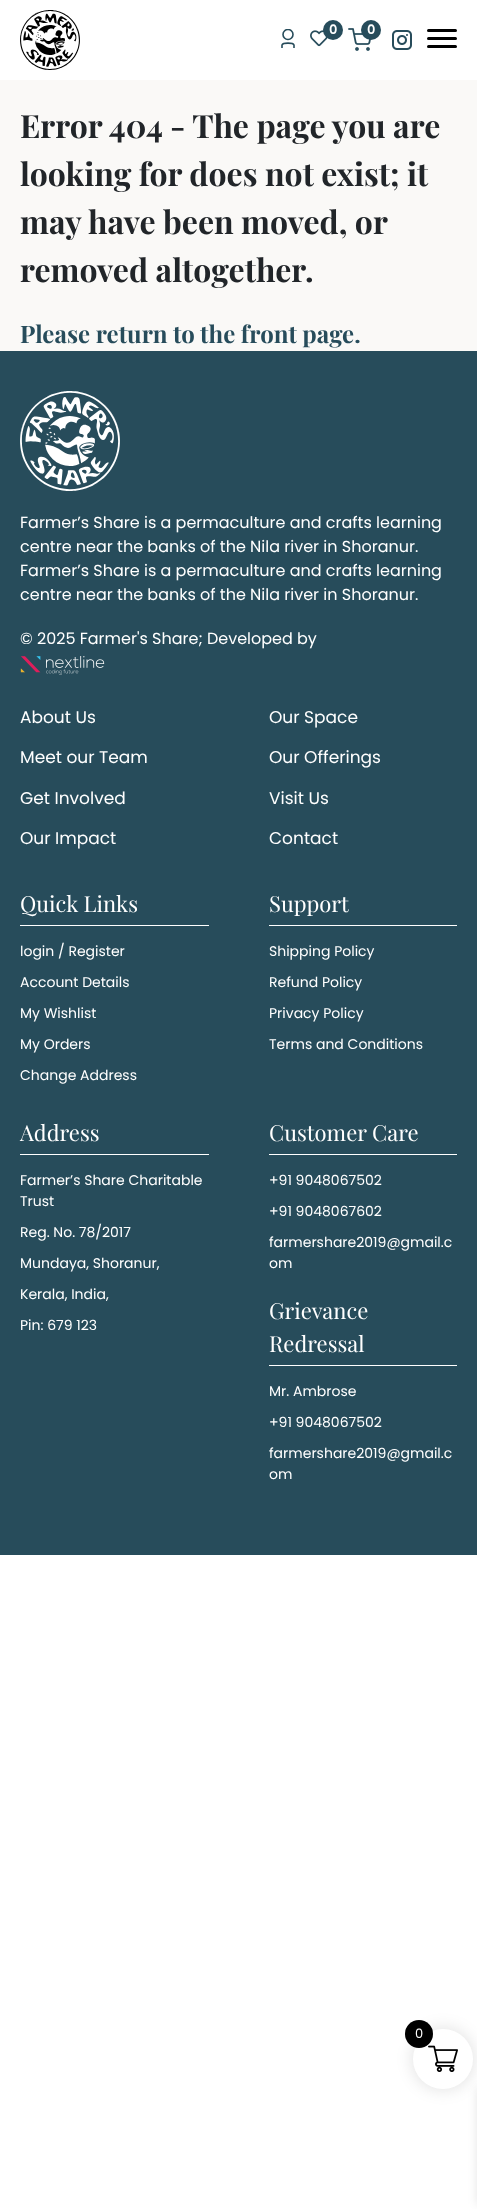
<!DOCTYPE html>
<meta charset="utf-8">
<style>body { margin: 0 } canvas { display: block }</style>
<canvas id="canvas" width="477" height="2209"></canvas>
<script type="module">
  const canvas = document.getElementById("canvas");
  const ctx = canvas.getContext("2d");
  ctx.miterLimit = 4;
  ctx.fontKerning = "normal";
  async function loadImage(src) {
    const img = new Image();
    img.src = src;
    await img.decode();
    return img;
  }

  ctx.fillStyle = "#ffffff";
  ctx.fillRect(0, 0, 477, 2209);
  ctx.drawImage(await loadImage("img1.png"), 20, 10, 60, 60);
  ctx.save();
  ctx.beginPath();
  ctx.rect(281, 29, 14, 19);
  ctx.clip();
  ctx.beginPath();
  ctx.arc(288, 34.5, 5, 0, Math.PI * 2);
  ctx.strokeStyle = "#274c5b";
  ctx.lineWidth = 1.6;
  ctx.stroke();
  ctx.beginPath();
  ctx.moveTo(282, 48);
  ctx.lineTo(282, 45);
  ctx.bezierCurveTo(283, 42.5, 293, 42.5, 294, 45);
  ctx.lineTo(294, 48);
  ctx.lineCap = "round";
  ctx.lineJoin = "round";
  ctx.stroke();
  ctx.restore();
  ctx.drawImage(await loadImage("img2.png"), 310, 30, 18, 17);
  ctx.fillStyle = "#274c5b";
  ctx.beginPath();
  ctx.arc(333, 30, 10, 0, Math.PI * 2);
  ctx.fill();
  ctx.font = "600 13px Poppins";
  ctx.fillStyle = "#ffffff";
  ctx.fillText("0", 329, 34);
  ctx.drawImage(await loadImage("img3.png"), 348, 28, 23, 23);
  ctx.fillStyle = "#274c5b";
  ctx.beginPath();
  ctx.arc(371, 30, 10, 0, Math.PI * 2);
  ctx.fill();
  ctx.fillStyle = "#ffffff";
  ctx.fillText("0", 367, 34);
  ctx.drawImage(await loadImage("img4.png"), 392, 30, 20, 20);
  ctx.fillStyle = "#000000";
  ctx.beginPath();
  ctx.roundRect(427, 29, 30, 3, 1.5);
  ctx.fill();
  ctx.beginPath();
  ctx.roundRect(427, 37, 30, 3, 1.5);
  ctx.fill();
  ctx.beginPath();
  ctx.roundRect(427, 45, 30, 3, 1.5);
  ctx.fill();
  ctx.fillStyle = "#faf9f7";
  ctx.fillRect(0, 80, 477, 271);
  ctx.font = "bold 32px Playfair Display";
  ctx.fillStyle = "#212529";
  ctx.fillText("Error 404 - The page you are", 20, 138);
  ctx.fillText("looking for does not exist; it", 20, 186);
  ctx.fillText("may have been moved, or", 20, 234);
  ctx.fillText("removed altogether.", 20, 282);
  ctx.font = "bold 24px Playfair Display";
  ctx.fillStyle = "#274c5b";
  ctx.fillText("Please return to the front page.", 20, 343);
  ctx.fillRect(0, 351, 477, 1204);
  ctx.drawImage(await loadImage("img5.png"), 20, 391, 100, 100);
  ctx.font = "16px Poppins";
  ctx.fillStyle = "#ffffff";
  ctx.fillText("Farmer’s Share is a permaculture and crafts learning", 20, 528);
  ctx.fillText("centre near the banks of the Nila river in Shoranur.", 20, 552);
  ctx.fillText("Farmer’s Share is a permaculture and crafts learning", 20, 576);
  ctx.fillText("centre near the banks of the Nila river in Shoranur.", 20, 600);
  ctx.fillText("© 2025 Farmer's Share; Developed by", 20, 644);
  ctx.drawImage(await loadImage("img6.png"), 20, 656, 85, 19);
  ctx.font = "17px Poppins";
  ctx.fillText("About Us", 20, 723);
  ctx.fillText("Our Space", 269, 723);
  ctx.fillText("Meet our Team", 20, 763);
  ctx.fillText("Our Offerings", 269, 763);
  ctx.fillText("Get Involved", 20, 804);
  ctx.fillText("Visit Us", 269, 804);
  ctx.fillText("Our Impact", 20, 844);
  ctx.fillText("Contact", 269, 844);
  ctx.fillRect(20, 925, 189, 1);
  ctx.font = "22px Playfair Display";
  ctx.fillText("Quick Links", 20, 912);
  ctx.font = "14px Poppins";
  ctx.fillText("login / Register", 20, 956);
  ctx.fillText("Account Details", 20, 987);
  ctx.fillText("My Wishlist", 20, 1018);
  ctx.fillText("My Orders", 20, 1049);
  ctx.fillText("Change Address", 20, 1080);
  ctx.fillRect(269, 925, 188, 1);
  ctx.font = "22px Playfair Display";
  ctx.fillText("Support", 269, 912);
  ctx.font = "14px Poppins";
  ctx.fillText("Shipping Policy", 269, 956);
  ctx.fillText("Refund Policy", 269, 987);
  ctx.fillText("Privacy Policy", 269, 1018);
  ctx.fillText("Terms and Conditions", 269, 1049);
  ctx.fillRect(20, 1154, 189, 1);
  ctx.font = "22px Playfair Display";
  ctx.fillText("Address", 20, 1141);
  ctx.font = "14px Poppins";
  ctx.fillText("Farmer’s Share Charitable", 20, 1185);
  ctx.fillText("Trust", 20, 1206);
  ctx.fillText("Reg. No. 78/2017", 20, 1237);
  ctx.fillText("Mundaya, Shoranur,", 20, 1268);
  ctx.fillText("Kerala, India,", 20, 1299);
  ctx.fillText("Pin: 679 123", 20, 1330);
  ctx.fillRect(269, 1154, 188, 1);
  ctx.font = "22px Playfair Display";
  ctx.fillText("Customer Care", 269, 1141);
  ctx.font = "14px Poppins";
  ctx.fillText("+91 9048067502", 269, 1185);
  ctx.fillText("+91 9048067602", 269, 1216);
  ctx.fillText("farmershare2019@gmail.c", 269, 1247);
  ctx.fillText("om", 269, 1268);
  ctx.fillRect(269, 1365, 188, 1);
  ctx.font = "22px Playfair Display";
  ctx.fillText("Grievance", 269, 1319);
  ctx.fillText("Redressal", 269, 1352);
  ctx.font = "14px Poppins";
  ctx.fillText("Mr. Ambrose", 269, 1396);
  ctx.fillText("+91 9048067502", 269, 1427);
  ctx.fillText("farmershare2019@gmail.c", 269, 1458);
  ctx.fillText("om", 269, 1479);
  ctx.fillStyle = "rgba(0, 0, 0, 0.1)";
  ctx.filter = "blur(7.5px)";
  ctx.beginPath();
  ctx.roundRect(411, 2027, 64, 64, 32);
  ctx.fill();
  ctx.filter = "none";
  ctx.filter = "blur(5px)";
  ctx.beginPath();
  ctx.rect(477, 2088, 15, 116);
  ctx.fill();
  ctx.filter = "none";
  ctx.fillStyle = "#ffffff";
  ctx.beginPath();
  ctx.arc(443, 2059, 30, 0, Math.PI * 2);
  ctx.fill();
  ctx.drawImage(await loadImage("img7.png"), 428, 2045, 30, 27);
  ctx.fillStyle = "#000000";
  ctx.beginPath();
  ctx.arc(419, 2034, 14, 0, Math.PI * 2);
  ctx.fill();
  ctx.font = "13px Poppins";
  ctx.fillStyle = "#ffffff";
  ctx.fillText("0", 415, 2038);
</script>
